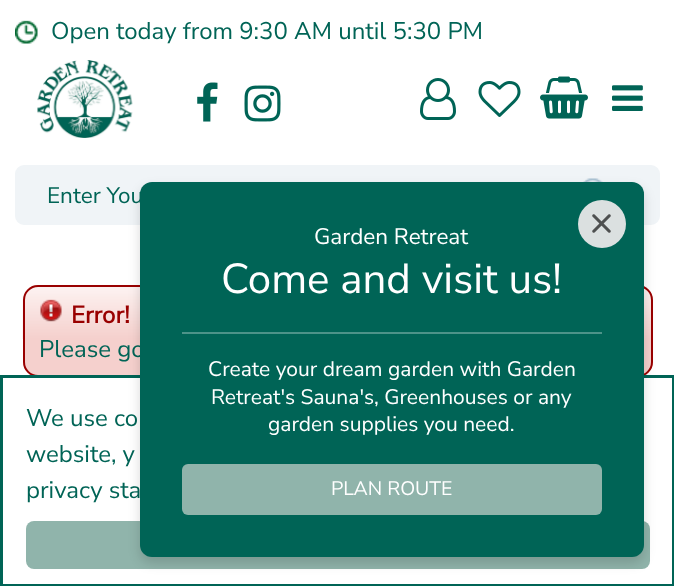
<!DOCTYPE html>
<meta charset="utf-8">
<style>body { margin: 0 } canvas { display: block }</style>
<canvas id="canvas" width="674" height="586"></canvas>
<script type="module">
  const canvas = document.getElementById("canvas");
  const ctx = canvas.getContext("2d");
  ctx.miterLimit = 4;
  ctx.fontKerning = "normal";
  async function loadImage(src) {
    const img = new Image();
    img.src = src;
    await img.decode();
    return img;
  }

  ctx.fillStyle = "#ffffff";
  ctx.fillRect(0, 0, 674, 586);
  ctx.drawImage(await loadImage("img1.png"), 15, 20, 23, 24);
  ctx.font = "200 24px Nunito Sans";
  ctx.fillStyle = "#006456";
  ctx.fillText("Open today from 9:30 AM until 5:30 PM", 51, 39);
  ctx.drawImage(await loadImage("img2.png"), 37, 60, 96, 78);
  ctx.drawImage(await loadImage("img3.png"), 197, 82, 21, 40);
  ctx.drawImage(await loadImage("img4.png"), 244, 85, 37, 37);
  ctx.drawImage(await loadImage("img5.png"), 420, 78, 36, 42);
  ctx.drawImage(await loadImage("img6.png"), 478, 81, 43, 36);
  ctx.drawImage(await loadImage("img7.png"), 540, 76, 48, 43);
  ctx.drawImage(await loadImage("img8.png"), 612, 85, 31, 26);
  ctx.fillStyle = "#f0f4f7";
  ctx.beginPath();
  ctx.roundRect(16, 166, 643, 58, 8);
  ctx.fill();
  ctx.strokeStyle = "#f0f4f7";
  ctx.lineWidth = 2;
  ctx.stroke();
  ctx.drawImage(await loadImage("img9.png"), 583, 178, 20, 4);
  ctx.font = "200 22.5px Nunito Sans";
  ctx.fillStyle = "#006456";
  ctx.fillText("Enter You", 47, 203);
  ctx.fillStyle = "#f5d0cd";
  ctx.beginPath();
  ctx.roundRect(23, 285, 630, 92, 15);
  ctx.fill();
  ctx.drawImage(await loadImage("img10.png"), 22, 286, 631, 53);
  ctx.beginPath();
  ctx.roundRect(24, 286, 628, 90, 14);
  ctx.strokeStyle = "#990000";
  ctx.stroke();
  ctx.drawImage(await loadImage("img11.png"), 40, 299, 22, 23);
  ctx.font = "bold 24px Nunito Sans";
  ctx.fillStyle = "#990000";
  ctx.fillText("Error!", 71, 323);
  ctx.font = "200 24px Nunito Sans";
  ctx.fillStyle = "#006456";
  ctx.fillText("Please go", 39, 357);
  ctx.strokeStyle = "#006456";
  ctx.lineWidth = 3;
  ctx.strokeRect(1.5, 376.5, 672, 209);
  ctx.fillText("We use co", 26, 426);
  ctx.fillText("website, y", 26, 462);
  ctx.fillText("privacy sta", 26, 498);
  ctx.fillStyle = "#90b4ab";
  ctx.beginPath();
  ctx.roundRect(26, 521, 624, 48, 8);
  ctx.fill();
  ctx.fillStyle = "rgba(0, 0, 0, 0.15)";
  ctx.filter = "blur(6px)";
  ctx.beginPath();
  ctx.roundRect(140, 188, 504, 375, 12);
  ctx.fill();
  ctx.filter = "none";
  ctx.fillStyle = "#006456";
  ctx.beginPath();
  ctx.roundRect(140, 182, 504, 375, 12);
  ctx.fill();
  ctx.font = "200 22.5px Nunito Sans";
  ctx.fillStyle = "#ffffff";
  ctx.fillText("Garden Retreat", 314, 244);
  ctx.font = "200 42px Nunito Sans";
  ctx.fillText("Come and visit us!", 221, 293);
  ctx.fillStyle = "#4d9389";
  ctx.fillRect(182, 332, 420, 2);
  ctx.font = "200 21px Nunito Sans";
  ctx.fillStyle = "#ffffff";
  ctx.fillText("Create your dream garden with Garden", 208, 376);
  ctx.fillText("Retreat's Sauna's, Greenhouses or any", 211, 404);
  ctx.fillText("garden supplies you need.", 268, 431);
  ctx.fillStyle = "#90b4ab";
  ctx.beginPath();
  ctx.roundRect(182, 464, 420, 51, 6);
  ctx.fill();
  ctx.font = "200 19.5px Nunito Sans";
  ctx.fillStyle = "#ffffff";
  ctx.fillText("PLAN ROUTE", 331, 495);
  ctx.fillStyle = "#dbe0e0";
  ctx.beginPath();
  ctx.arc(602, 224, 24, 0, Math.PI * 2);
  ctx.fill();
  ctx.drawImage(await loadImage("img12.png"), 592, 214, 19, 19);
</script>
